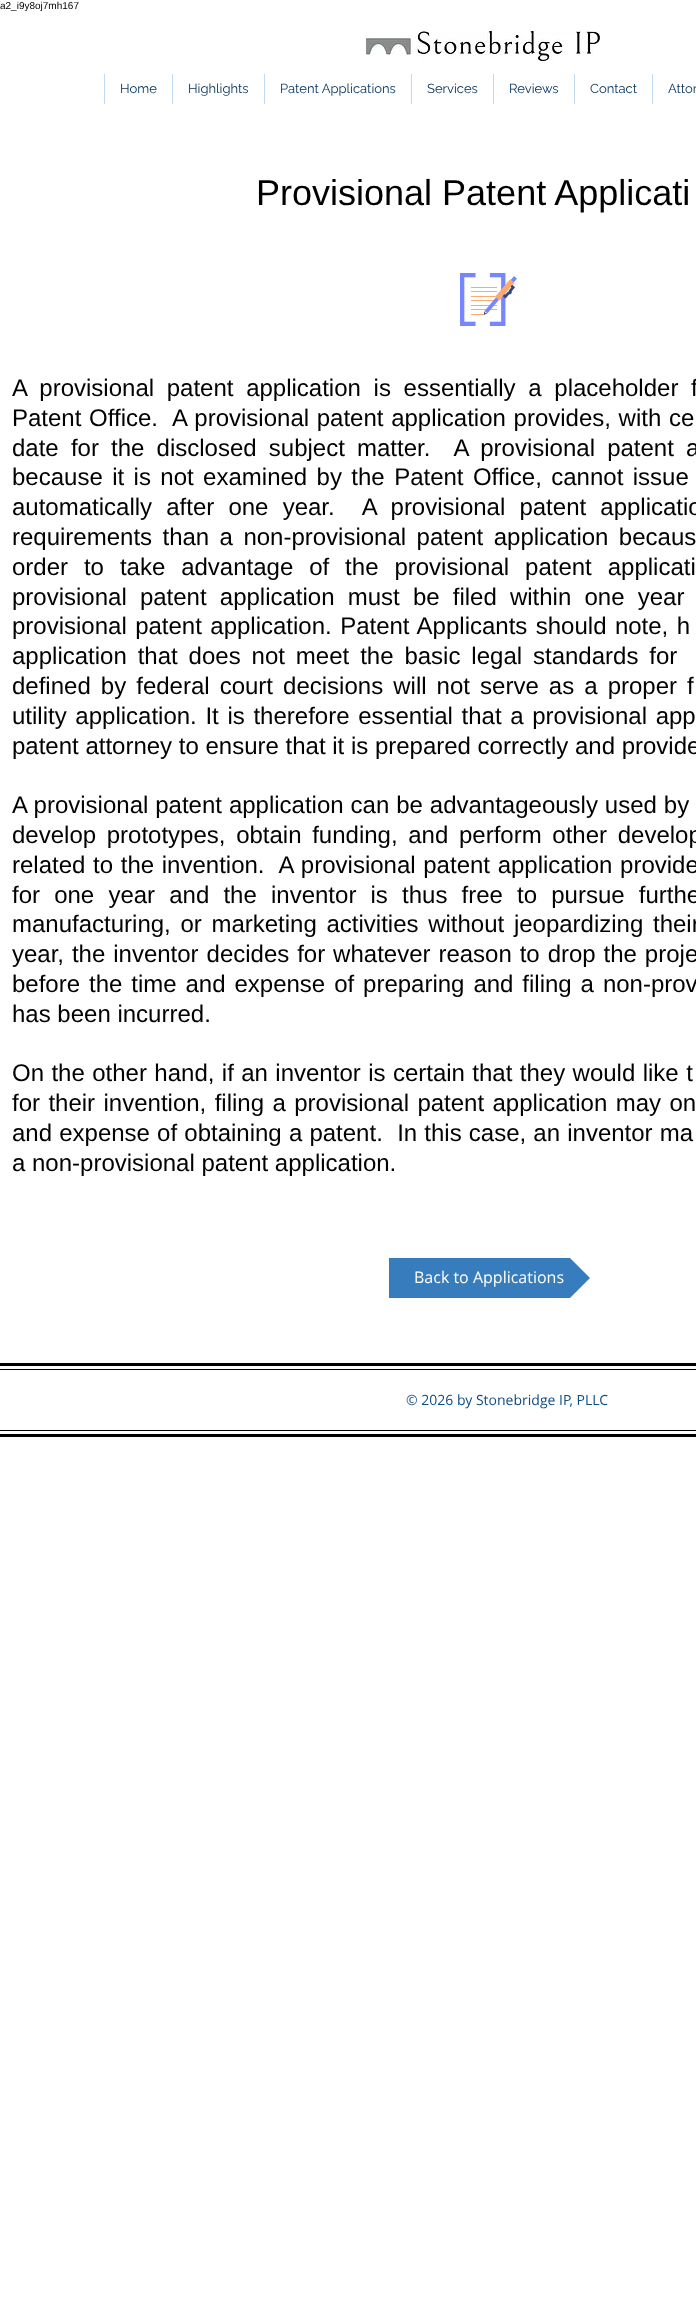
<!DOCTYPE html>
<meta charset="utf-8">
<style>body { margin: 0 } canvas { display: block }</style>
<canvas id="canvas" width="696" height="2315"></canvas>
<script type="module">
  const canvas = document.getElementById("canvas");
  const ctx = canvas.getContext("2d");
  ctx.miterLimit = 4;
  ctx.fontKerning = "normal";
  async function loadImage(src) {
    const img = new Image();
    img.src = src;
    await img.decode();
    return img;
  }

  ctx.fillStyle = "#ffffff";
  ctx.fillRect(0, 0, 696, 2315);
  ctx.font = "10px Liberation Sans";
  ctx.fillStyle = "#000000";
  ctx.fillText("a2_i9y8oj7mh167", 0, 9);
  ctx.fillStyle = "#ffffff";
  ctx.fillRect(25, 11, 17, 1);
  ctx.drawImage(await loadImage("img1.png"), 366, 31, 234, 30);
  ctx.fillStyle = "#c0daf2";
  ctx.fillRect(104, 74, 1, 30);
  ctx.font = "13px Raleway";
  ctx.fillStyle = "#00305b";
  ctx.fillText("Home", 120, 93);
  ctx.fillStyle = "#c0daf2";
  ctx.fillRect(172, 74, 1, 30);
  ctx.fillStyle = "#00305b";
  ctx.fillText("Highlights", 188, 93);
  ctx.fillStyle = "#c0daf2";
  ctx.fillRect(264, 74, 1, 30);
  ctx.fillStyle = "#00305b";
  ctx.fillText("Patent Applications", 280, 93);
  ctx.fillStyle = "#c0daf2";
  ctx.fillRect(411, 74, 1, 30);
  ctx.fillStyle = "#00305b";
  ctx.fillText("Services", 427, 93);
  ctx.fillStyle = "#c0daf2";
  ctx.fillRect(493, 74, 1, 30);
  ctx.fillStyle = "#00305b";
  ctx.fillText("Reviews", 509, 93);
  ctx.fillStyle = "#c0daf2";
  ctx.fillRect(574, 74, 1, 30);
  ctx.fillStyle = "#00305b";
  ctx.fillText("Contact", 590, 93);
  ctx.fillStyle = "#c0daf2";
  ctx.fillRect(652, 74, 1, 30);
  ctx.fillStyle = "#00305b";
  ctx.fillText("Attor", 668, 93);
  ctx.font = "36px Liberation Sans";
  ctx.fillStyle = "#000000";
  ctx.fillText("Provisional Patent Applicati", 256, 205);
  ctx.drawImage(await loadImage("img2.png"), 460, 273, 57, 53);
  ctx.wordSpacing = "6px";
  ctx.font = "24px Liberation Sans";
  ctx.fillText("A provisional patent application is essentially a placeholder f", 12, 396);
  ctx.wordSpacing = "1px";
  ctx.fillText("Patent Office.  A provisional patent application provides, with ce", 12, 426);
  ctx.wordSpacing = "5.5px";
  ctx.fillText("date for the disclosed subject matter.  A provisional patent a", 12, 456);
  ctx.wordSpacing = "2.75px";
  ctx.fillText("because it is not examined by the Patent Office, cannot issue", 12, 485);
  ctx.wordSpacing = "7.5px";
  ctx.fillText("automatically after one year.  A provisional patent applicatio", 12, 515);
  ctx.wordSpacing = "3.75px";
  ctx.fillText("requirements than a non-provisional patent application becaus", 12, 545);
  ctx.wordSpacing = "9.25px";
  ctx.fillText("order to take advantage of the provisional patent applicati", 12, 575);
  ctx.wordSpacing = "6.5px";
  ctx.fillText("provisional patent application must be filed within one year", 12, 605);
  ctx.wordSpacing = "1.75px";
  ctx.fillText("provisional patent application. Patent Applicants should note, h", 12, 634);
  ctx.wordSpacing = "4.25px";
  ctx.fillText("application that does not meet the basic legal standards for", 12, 664);
  ctx.wordSpacing = "3.4px";
  ctx.fillText("defined by federal court decisions will not serve as a proper f", 12, 694);
  ctx.wordSpacing = "2px";
  ctx.fillText("utility application. It is therefore essential that a provisional app", 12, 724);
  ctx.wordSpacing = "0px";
  ctx.fillText("patent attorney to ensure that it is prepared correctly and provide", 12, 754);
  ctx.wordSpacing = "0.25px";
  ctx.fillText("A provisional patent application can be advantageously used by", 12, 813);
  ctx.wordSpacing = "4px";
  ctx.fillText("develop prototypes, obtain funding, and perform other develop", 12, 843);
  ctx.wordSpacing = "1px";
  ctx.fillText("related to the invention.  A provisional patent application provide", 12, 873);
  ctx.wordSpacing = "7.5px";
  ctx.fillText("for one year and the inventor is thus free to pursue furthe", 12, 903);
  ctx.wordSpacing = "3px";
  ctx.fillText("manufacturing, or marketing activities without jeopardizing their", 12, 932);
  ctx.wordSpacing = "1.25px";
  ctx.fillText("year, the inventor decides for whatever reason to drop the proje", 12, 962);
  ctx.wordSpacing = "2.25px";
  ctx.fillText("before the time and expense of preparing and filing a non-prov", 12, 992);
  ctx.wordSpacing = "0px";
  ctx.fillText("has been incurred.", 12, 1022);
  ctx.wordSpacing = "0.75px";
  ctx.fillText("On the other hand, if an inventor is certain that they would like t", 12, 1081);
  ctx.wordSpacing = "1.75px";
  ctx.fillText("for their invention, filing a provisional patent application may on", 12, 1111);
  ctx.wordSpacing = "0.5px";
  ctx.fillText("and expense of obtaining a patent.  In this case, an inventor ma", 12, 1141);
  ctx.wordSpacing = "0px";
  ctx.fillText("a non-provisional patent application.", 12, 1171);
  ctx.fillStyle = "#377dbd";
  ctx.fillRect(389, 1258, 151, 40);
  ctx.save();
  ctx.beginPath();
  ctx.rect(389, 1258, 201, 40);
  ctx.clip();
  ctx.beginPath();
  ctx.moveTo(590, 1278);
  ctx.lineTo(540, 1278);
  ctx.lineTo(540, 1228);
  ctx.closePath();
  ctx.moveTo(540, 1278);
  ctx.lineTo(590, 1278);
  ctx.lineTo(540, 1328);
  ctx.closePath();
  ctx.fill();
  ctx.restore();
  ctx.font = "16px Open Sans";
  ctx.fillStyle = "#ffffff";
  ctx.fillText("Back to Applications", 414, 1283);
  ctx.fillStyle = "#000000";
  ctx.fillRect(0, 1363, 696, 3);
  ctx.fillRect(0, 1434, 696, 3);
  ctx.fillRect(0, 1369, 696, 1);
  ctx.fillRect(0, 1430, 696, 1);
  ctx.font = "14px Open Sans";
  ctx.fillStyle = "#0f4c85";
  ctx.fillText("© 2026 by Stonebridge IP, PLLC", 406, 1405);
</script>
